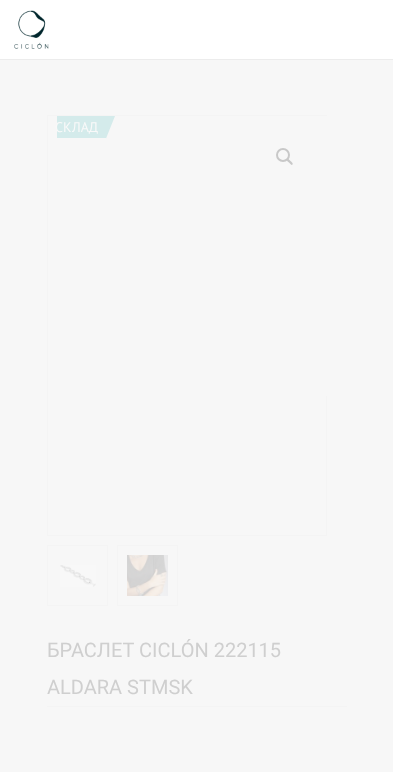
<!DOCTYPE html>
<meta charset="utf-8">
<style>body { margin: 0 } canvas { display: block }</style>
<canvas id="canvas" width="393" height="772"></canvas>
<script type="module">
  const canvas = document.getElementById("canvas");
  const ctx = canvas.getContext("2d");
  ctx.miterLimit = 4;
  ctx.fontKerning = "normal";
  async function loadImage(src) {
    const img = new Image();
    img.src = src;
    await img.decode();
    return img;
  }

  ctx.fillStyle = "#f7f7f7";
  ctx.fillRect(0, 0, 393, 772);
  ctx.fillStyle = "#ffffff";
  ctx.fillRect(0, 0, 393, 59);
  ctx.fillStyle = "#ececec";
  ctx.fillRect(0, 59, 393, 1);
  ctx.drawImage(await loadImage("img1.png"), 14, 10, 35, 39);
  ctx.fillStyle = "#f4f4f4";
  ctx.fillRect(47, 115, 280, 1);
  ctx.fillRect(47, 535, 280, 1);
  ctx.fillRect(47, 116, 1, 419);
  ctx.fillStyle = "#d4ebeb";
  ctx.fillRect(57, 116, 49, 22);
  ctx.font = "14px PT Sans";
  ctx.fillStyle = "#f9f9f9";
  ctx.fillText("СКЛАД", 55, 132);
  ctx.fillStyle = "#d4ebeb";
  ctx.beginPath();
  ctx.moveTo(106, 116);
  ctx.lineTo(115, 116);
  ctx.lineTo(106, 138.5);
  ctx.closePath();
  ctx.fill();
  ctx.fillStyle = "#f4f4f4";
  ctx.fillRect(326, 396, 1, 139);
  ctx.beginPath();
  ctx.arc(283, 155, 6, 0, Math.PI * 2);
  ctx.strokeStyle = "#c8c8c8";
  ctx.lineWidth = 2;
  ctx.stroke();
  ctx.fillStyle = "#c8c8c8";
  ctx.beginPath();
  ctx.moveTo(287, 159);
  ctx.bezierCurveTo(288, 158, 290, 160.5, 290.5, 161);
  ctx.bezierCurveTo(291, 161.5, 293.5, 163.5, 292.5, 164.5);
  ctx.bezierCurveTo(291.5, 166, 289.5, 163, 289, 162.5);
  ctx.bezierCurveTo(288.5, 162, 285.5, 160, 287, 159);
  ctx.closePath();
  ctx.fill();
  ctx.strokeStyle = "#f4f4f4";
  ctx.lineWidth = 1;
  ctx.strokeRect(47.5, 545.5, 60, 60);
  ctx.drawImage(await loadImage("img2.png"), 60, 565, 36, 22);
  ctx.strokeRect(117.5, 545.5, 60, 60);
  ctx.drawImage(await loadImage("img3.png"), 127, 555, 41, 41);
  ctx.fillStyle = "#f4f4f4";
  ctx.fillRect(47, 706, 300, 1);
  ctx.font = "20px Roboto";
  ctx.fillStyle = "#cfcfcf";
  ctx.fillText("БРАСЛЕТ CICLÓN 222115", 47, 657);
  ctx.fillText("ALDARA STMSK", 47, 694);
</script>
